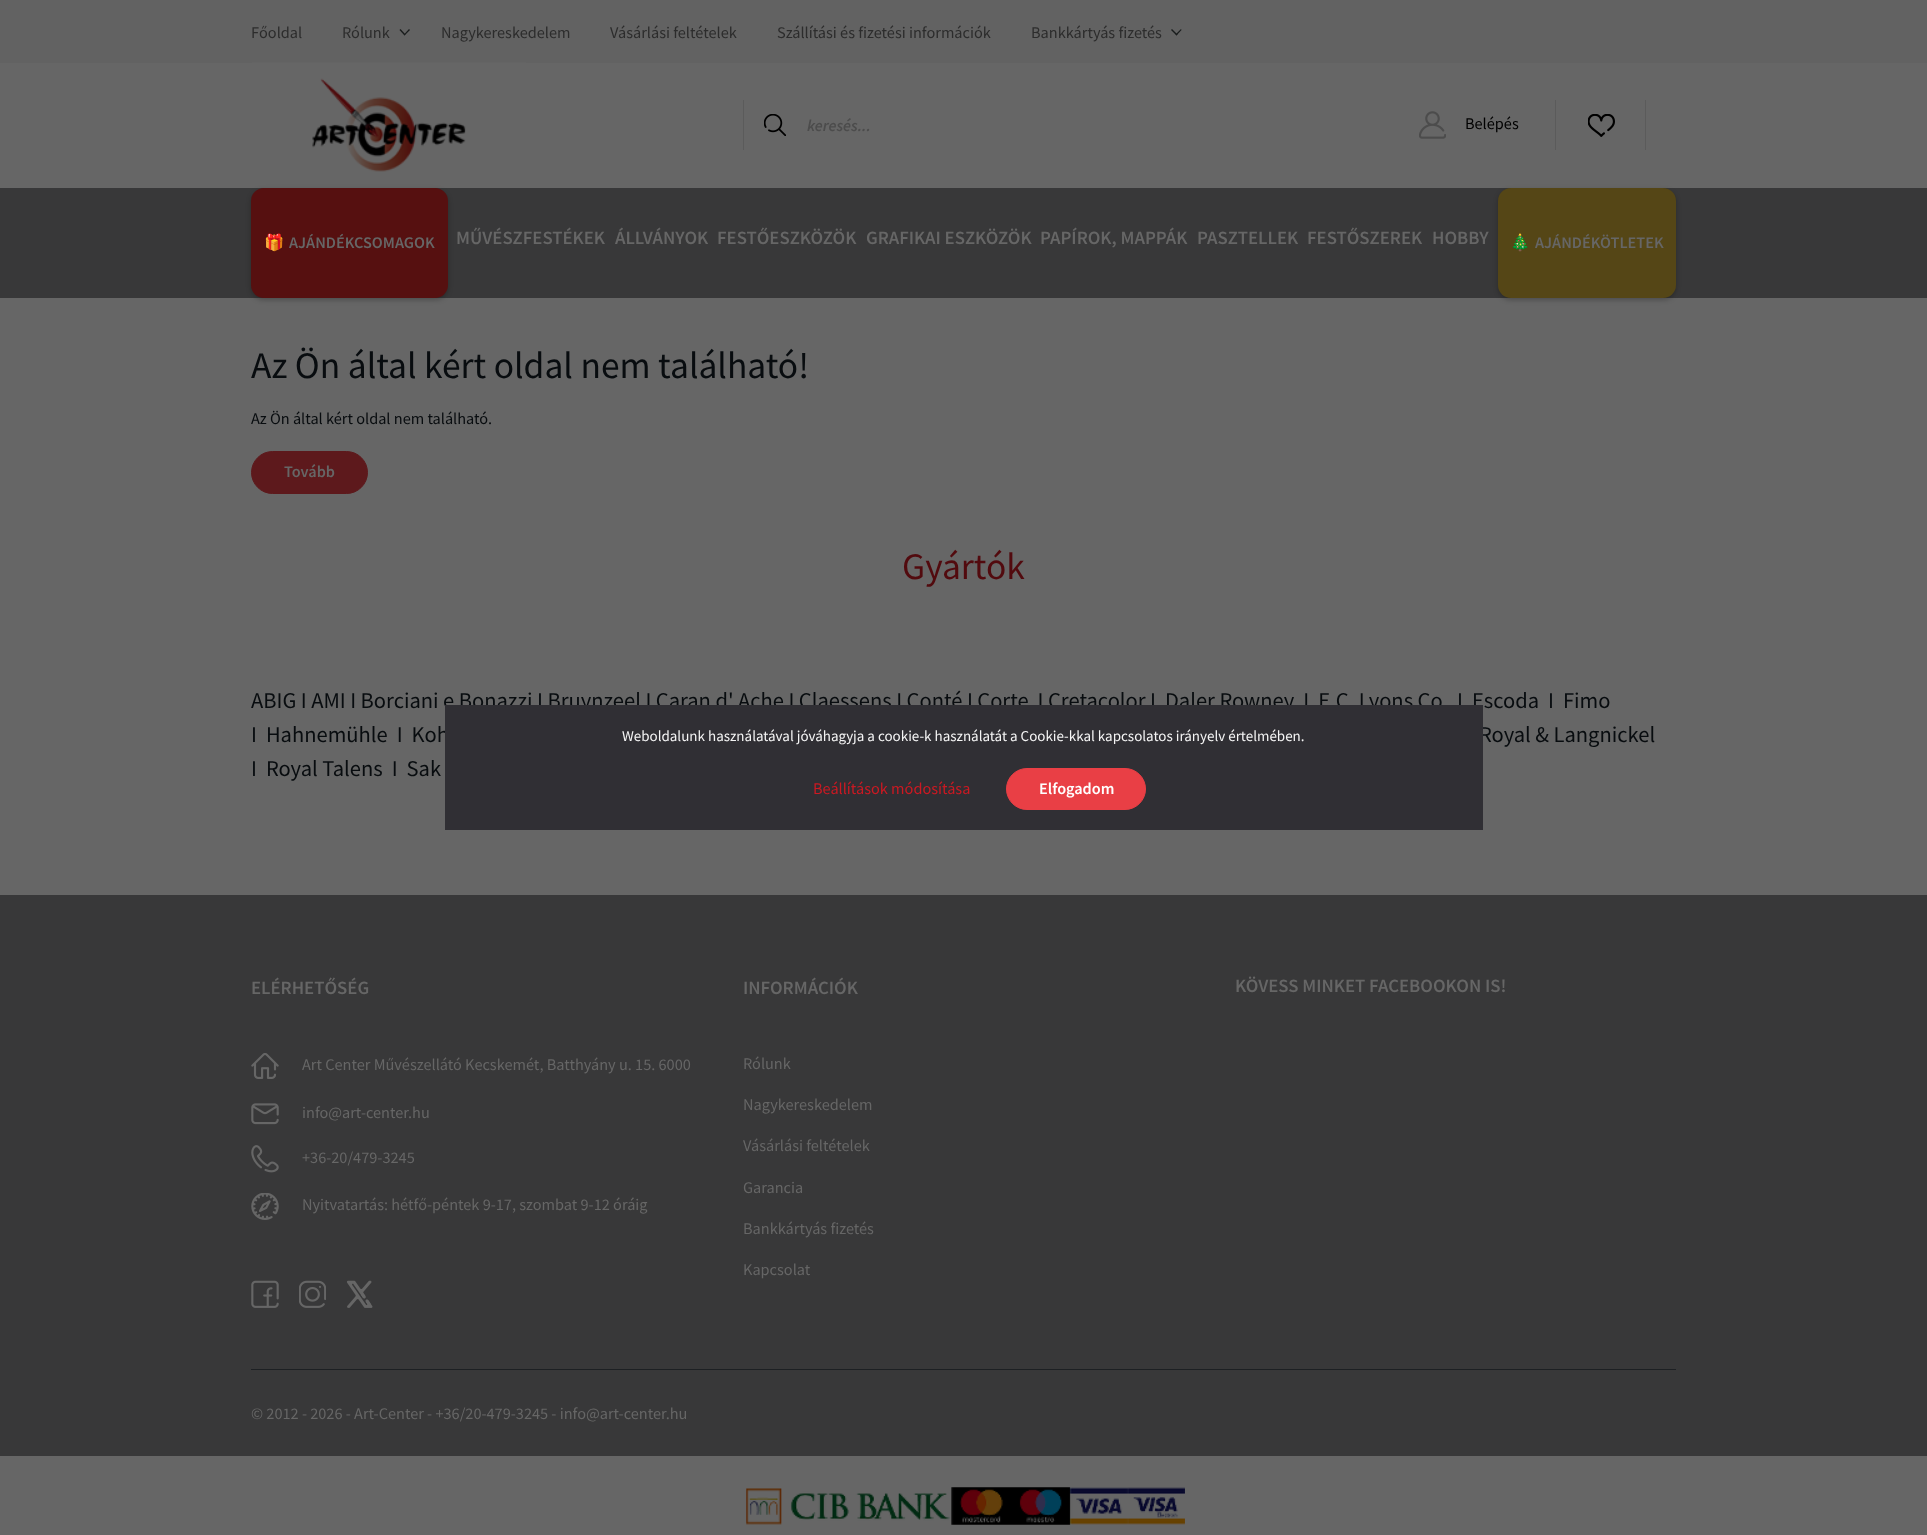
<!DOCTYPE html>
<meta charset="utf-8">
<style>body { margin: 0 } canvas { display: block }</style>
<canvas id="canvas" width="1927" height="1535"></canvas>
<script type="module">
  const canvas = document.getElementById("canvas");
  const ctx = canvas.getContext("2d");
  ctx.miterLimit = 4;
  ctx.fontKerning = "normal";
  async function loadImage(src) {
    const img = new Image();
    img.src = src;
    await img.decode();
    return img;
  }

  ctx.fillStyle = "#666666";
  ctx.fillRect(0, 0, 1927, 1535);
  ctx.fillStyle = "#626262";
  ctx.fillRect(0, 0, 1927, 63);
  ctx.font = "16.25px Source Sans Pro";
  ctx.fillStyle = "#2c2c2c";
  ctx.fillText("Főoldal", 251, 38);
  ctx.fillText("Rólunk", 342, 38);
  ctx.fillStyle = "#191c1c";
  ctx.beginPath();
  ctx.moveTo(409, 29);
  ctx.lineTo(410, 30);
  ctx.lineTo(404.5, 35.5);
  ctx.lineTo(404, 34.5);
  ctx.closePath();
  ctx.fill();
  ctx.beginPath();
  ctx.moveTo(400.5, 29);
  ctx.lineTo(405.5, 34.5);
  ctx.lineTo(404.5, 35.5);
  ctx.lineTo(399.5, 30);
  ctx.closePath();
  ctx.fill();
  ctx.fillStyle = "#2c2c2c";
  ctx.fillText("Nagykereskedelem", 441, 38);
  ctx.fillText("Vásárlási feltételek", 610, 38);
  ctx.fillText("Szállítási és fizetési információk", 777, 38);
  ctx.fillText("Bankkártyás fizetés", 1031, 38);
  ctx.fillStyle = "#191c1c";
  ctx.beginPath();
  ctx.moveTo(1181, 29);
  ctx.lineTo(1181.5, 30);
  ctx.lineTo(1176.5, 35.5);
  ctx.lineTo(1175.5, 34.5);
  ctx.closePath();
  ctx.fill();
  ctx.beginPath();
  ctx.moveTo(1172, 29);
  ctx.lineTo(1177.5, 34.5);
  ctx.lineTo(1176.5, 35.5);
  ctx.lineTo(1171, 30);
  ctx.closePath();
  ctx.fill();
  ctx.drawImage(await loadImage("img1.png"), 252, 62, 274, 110);
  ctx.drawImage(await loadImage("img2.png"), 764, 114, 22, 22);
  ctx.fillStyle = "#5b5b5b";
  ctx.fillRect(743, 100, 1, 50);
  ctx.font = "italic 600 16.25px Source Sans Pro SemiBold";
  ctx.fillStyle = "#4c4c4c";
  ctx.fillText("keresés...", 807, 131);
  ctx.drawImage(await loadImage("img3.png"), 1419, 111, 27, 28);
  ctx.font = "16.25px Source Sans Pro";
  ctx.fillStyle = "#000000";
  ctx.fillText("Belépés", 1465, 129);
  ctx.fillStyle = "#5b5b5b";
  ctx.fillRect(1555, 100, 1, 50);
  ctx.drawImage(await loadImage("img4.png"), 1588, 114, 27, 23);
  ctx.fillRect(1645, 100, 1, 50);
  ctx.fillStyle = "#383839";
  ctx.fillRect(0, 188, 1927, 110);
  ctx.fillStyle = "rgba(0, 0, 0, 0.25)";
  ctx.filter = "blur(2.5px)";
  ctx.beginPath();
  ctx.roundRect(251, 190, 197, 110, 13);
  ctx.fill();
  ctx.filter = "none";
  ctx.fillStyle = "#561010";
  ctx.beginPath();
  ctx.roundRect(251, 188, 197, 110, 13);
  ctx.fill();
  ctx.font = "bold 16.25px Noto Color Emoji";
  ctx.fillStyle = "#666666";
  ctx.fillText("🎁", 264, 248);
  ctx.font = "600 16.25px Source Sans Pro SemiBold";
  ctx.fillText("AJÁNDÉKCSOMAGOK", 289, 248);
  ctx.font = "600 18.75px Source Sans Pro SemiBold";
  ctx.fillText("MŰVÉSZFESTÉKEK", 456, 244);
  ctx.fillText("ÁLLVÁNYOK", 615, 244);
  ctx.fillText("FESTŐESZKÖZÖK", 717, 244);
  ctx.fillText("GRAFIKAI ESZKÖZÖK", 866, 244);
  ctx.fillText("PAPÍROK, MAPPÁK", 1040, 244);
  ctx.fillText("PASZTELLEK", 1197, 244);
  ctx.fillText("FESTŐSZEREK", 1307, 244);
  ctx.fillText("HOBBY", 1432, 244);
  ctx.fillStyle = "rgba(0, 0, 0, 0.25)";
  ctx.filter = "blur(2.5px)";
  ctx.beginPath();
  ctx.roundRect(1498, 190, 178, 110, 13);
  ctx.fill();
  ctx.filter = "none";
  ctx.fillStyle = "#554616";
  ctx.beginPath();
  ctx.roundRect(1498, 188, 178, 110, 13);
  ctx.fill();
  ctx.font = "bold 16.25px Noto Color Emoji";
  ctx.fillStyle = "#666666";
  ctx.fillText("🎄", 1510, 248);
  ctx.font = "600 16.25px Source Sans Pro SemiBold";
  ctx.fillText("AJÁNDÉKÖTLETEK", 1535, 248);
  ctx.font = "37.5px Source Sans Pro";
  ctx.fillStyle = "#080c0f";
  ctx.fillText("Az Ön által kért oldal nem található!", 251, 378);
  ctx.font = "16.25px Source Sans Pro";
  ctx.fillText("Az Ön által kért oldal nem található.", 251, 424);
  ctx.fillStyle = "#5d191c";
  ctx.beginPath();
  ctx.roundRect(251.5, 451.5, 116, 42, 21);
  ctx.fill();
  ctx.strokeStyle = "#5d191c";
  ctx.stroke();
  ctx.font = "600 16.25px Source Sans Pro SemiBold";
  ctx.fillStyle = "#666666";
  ctx.fillText("Tovább", 284, 477);
  ctx.font = "37.5px Source Sans Pro";
  ctx.fillStyle = "#520a0e";
  ctx.fillText("Gyártók", 902, 579);
  ctx.font = "22.5px Source Sans Pro";
  ctx.fillStyle = "#080c0f";
  ctx.fillText("ABIG I AMI I Borciani e Bonazzi I Bruynzeel I Caran d' Ache I Claessens I Conté I Corte  I Cretacolor I  Daler Rowney  I  E.C. Lyons Co.  I  Escoda  I  Fimo", 251, 708);
  ctx.fillText("I  Hahnemühle  I  Koh", 251, 742);
  ctx.fillText("Royal & Langnickel", 1479, 742);
  ctx.fillText("I  Royal Talens  I  Sak", 251, 776);
  ctx.fillStyle = "#383839";
  ctx.fillRect(0, 895, 1927, 561);
  ctx.font = "600 18.75px Source Sans Pro SemiBold";
  ctx.fillStyle = "#666666";
  ctx.fillText("ELÉRHETŐSÉG", 251, 994);
  ctx.drawImage(await loadImage("img5.png"), 251, 1053, 28, 26);
  ctx.font = "16.25px Source Sans Pro";
  ctx.fillText("Art Center Művészellátó Kecskemét, Batthyány u. 15. 6000", 302, 1070);
  ctx.drawImage(await loadImage("img6.png"), 251, 1103, 28, 22);
  ctx.fillText("info@art-center.hu", 302, 1118);
  ctx.drawImage(await loadImage("img7.png"), 251, 1145, 28, 28);
  ctx.fillText("+36-20/479-3245", 302, 1163);
  ctx.drawImage(await loadImage("img8.png"), 251, 1193, 28, 27);
  ctx.fillText("Nyitvatartás: hétfő-péntek 9-17, szombat 9-12 óráig", 302, 1210);
  ctx.drawImage(await loadImage("img9.png"), 251, 1280, 28, 28);
  ctx.drawImage(await loadImage("img10.png"), 299, 1280, 27, 28);
  ctx.drawImage(await loadImage("img11.png"), 346, 1280, 27, 28);
  ctx.font = "600 18.75px Source Sans Pro SemiBold";
  ctx.fillText("INFORMÁCIÓK", 743, 994);
  ctx.font = "16.25px Source Sans Pro";
  ctx.fillText("Rólunk", 743, 1069);
  ctx.fillText("Nagykereskedelem", 743, 1110);
  ctx.fillText("Vásárlási feltételek", 743, 1151);
  ctx.fillText("Garancia", 743, 1193);
  ctx.fillText("Bankkártyás fizetés", 743, 1234);
  ctx.fillText("Kapcsolat", 743, 1275);
  ctx.font = "600 18.75px Source Sans Pro SemiBold";
  ctx.fillText("KÖVESS MINKET FACEBOOKON IS!", 1235, 992);
  ctx.fillStyle = "#1d2023";
  ctx.fillRect(251, 1369, 1425, 1);
  ctx.font = "16.25px Source Sans Pro";
  ctx.fillStyle = "#666666";
  ctx.fillText("© 2012 - 2026 - Art-Center - +36/20-479-3245 - info@art-center.hu", 251, 1419);
  ctx.drawImage(await loadImage("img12.png"), 746, 1487, 439, 38);
  ctx.fillStyle = "#302f34";
  ctx.fillRect(445, 705, 1038, 125);
  ctx.font = "15px Source Sans Pro";
  ctx.fillStyle = "#f5f5f5";
  ctx.fillText("Weboldalunk használatával jóváhagyja a cookie-k használatát a Cookie-kkal kapcsolatos irányelv értelmében.", 622, 741);
  ctx.font = "16.25px Source Sans Pro";
  ctx.fillStyle = "#cc1922";
  ctx.fillText("Beállítások módosítása", 813, 794);
  ctx.fillStyle = "#e93f45";
  ctx.beginPath();
  ctx.roundRect(1006.5, 768.5, 139, 41, 20.5);
  ctx.fill();
  ctx.strokeStyle = "#e93f45";
  ctx.stroke();
  ctx.font = "600 16.25px Source Sans Pro SemiBold";
  ctx.fillStyle = "#ffffff";
  ctx.fillText("Elfogadom", 1039, 794);
</script>
